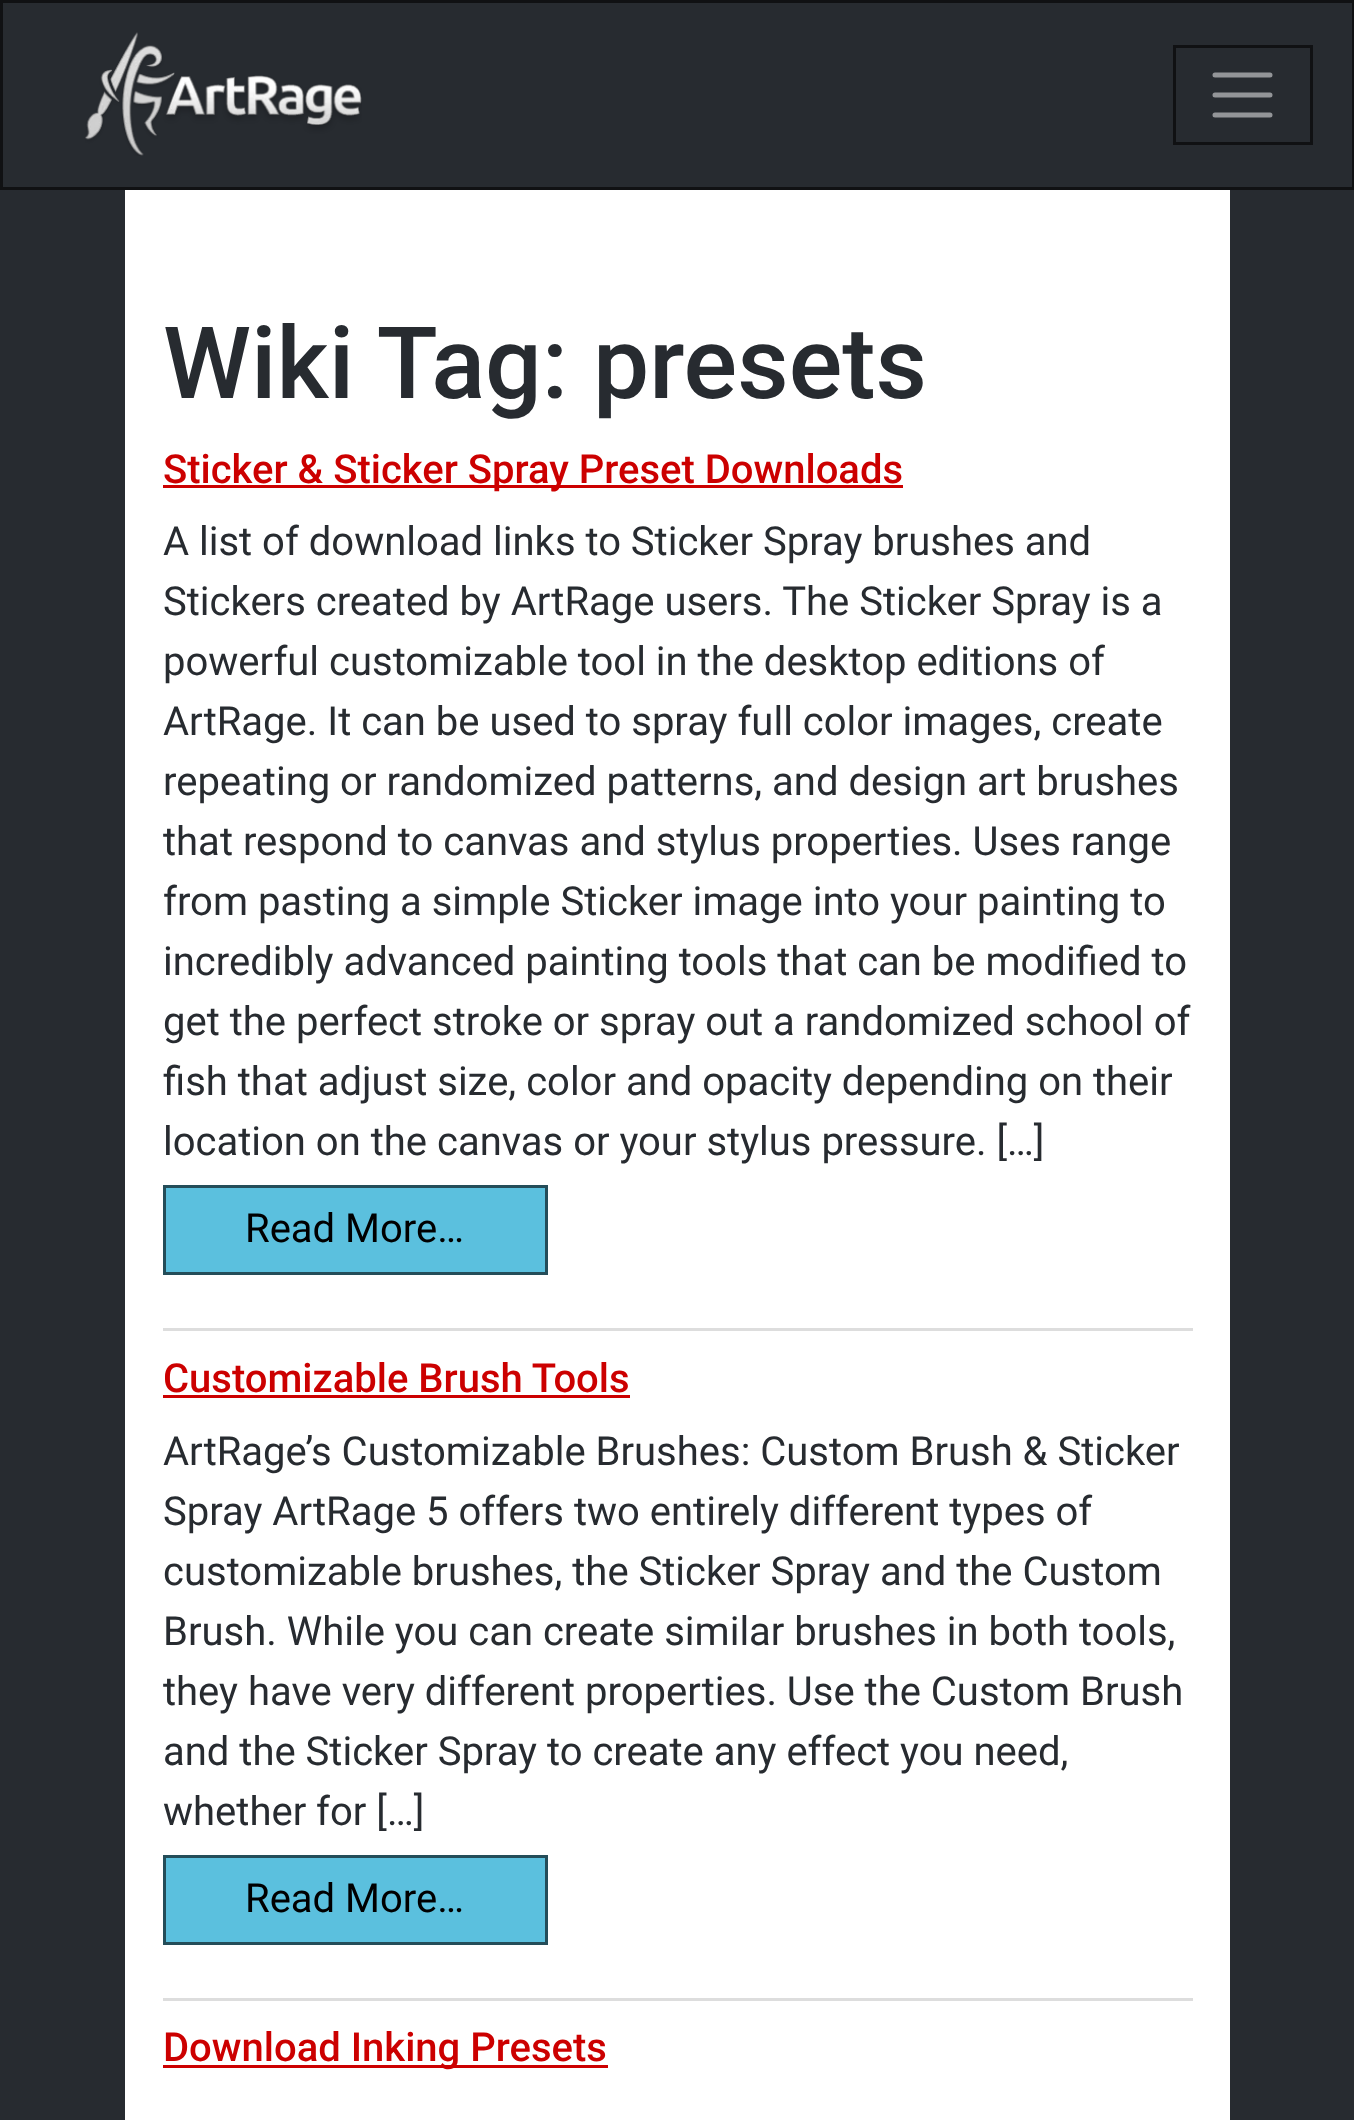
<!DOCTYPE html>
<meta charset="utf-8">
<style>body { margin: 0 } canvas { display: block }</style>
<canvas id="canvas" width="1354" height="2120"></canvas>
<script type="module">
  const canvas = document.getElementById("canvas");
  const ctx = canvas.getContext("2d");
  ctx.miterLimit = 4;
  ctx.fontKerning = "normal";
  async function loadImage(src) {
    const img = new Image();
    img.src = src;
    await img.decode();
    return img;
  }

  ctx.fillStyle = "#272b30";
  ctx.fillRect(0, 0, 1354, 2120);
  ctx.strokeStyle = "#101113";
  ctx.lineWidth = 3;
  ctx.strokeRect(1.5, 1.5, 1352, 187);
  ctx.drawImage(await loadImage("img1.png"), 85, 32, 277, 124);
  ctx.strokeRect(1174.5, 46.5, 137, 97);
  ctx.beginPath();
  ctx.moveTo(1215, 75);
  ctx.lineTo(1270, 75);
  ctx.moveTo(1215, 95);
  ctx.lineTo(1270, 95);
  ctx.moveTo(1215, 115);
  ctx.lineTo(1270, 115);
  ctx.strokeStyle = "#939598";
  ctx.lineWidth = 5;
  ctx.lineCap = "round";
  ctx.stroke();
  ctx.fillStyle = "#ffffff";
  ctx.fillRect(125, 190, 1105, 1930);
  ctx.font = "500 100px Roboto";
  ctx.fillStyle = "#272b30";
  ctx.fillText("Wiki Tag: presets", 163, 398);
  ctx.fillStyle = "#dddddd";
  ctx.fillRect(163, 1328, 1030, 3);
  ctx.fillStyle = "#cc0000";
  ctx.fillRect(163, 485, 740, 3);
  ctx.font = "500 40px Roboto";
  ctx.fillText("Sticker & Sticker Spray Preset Downloads", 163, 483);
  ctx.font = "40px Roboto";
  ctx.fillStyle = "#272b30";
  ctx.fillText("A list of download links to Sticker Spray brushes and", 163, 555);
  ctx.fillText("Stickers created by ArtRage users. The Sticker Spray is a", 163, 615);
  ctx.fillText("powerful customizable tool in the desktop editions of", 163, 675);
  ctx.fillText("ArtRage. It can be used to spray full color images, create", 163, 735);
  ctx.fillText("repeating or randomized patterns, and design art brushes", 163, 795);
  ctx.fillText("that respond to canvas and stylus properties. Uses range", 163, 855);
  ctx.fillText("from pasting a simple Sticker image into your painting to", 163, 915);
  ctx.fillText("incredibly advanced painting tools that can be modified to", 163, 975);
  ctx.fillText("get the perfect stroke or spray out a randomized school of", 163, 1035);
  ctx.fillText("fish that adjust size, color and opacity depending on their", 163, 1095);
  ctx.fillText("location on the canvas or your stylus pressure. […]", 163, 1155);
  ctx.fillStyle = "#5bc0de";
  ctx.beginPath();
  ctx.rect(164.5, 1186.5, 382, 87);
  ctx.fill();
  ctx.strokeStyle = "#244d59";
  ctx.lineWidth = 3;
  ctx.stroke();
  ctx.fillStyle = "#000000";
  ctx.fillText("Read More…", 245, 1242);
  ctx.fillStyle = "#dddddd";
  ctx.fillRect(163, 1998, 1030, 3);
  ctx.font = "500 40px Roboto";
  ctx.fillStyle = "#cc0000";
  ctx.fillText("Customizable Brush Tools", 163, 1392);
  ctx.fillRect(163, 1395, 467, 3);
  ctx.font = "40px Roboto";
  ctx.fillStyle = "#272b30";
  ctx.fillText("ArtRage’s Customizable Brushes: Custom Brush & Sticker", 163, 1465);
  ctx.fillText("Spray ArtRage 5 offers two entirely different types of", 163, 1525);
  ctx.fillText("customizable brushes, the Sticker Spray and the Custom", 163, 1585);
  ctx.fillText("Brush. While you can create similar brushes in both tools,", 163, 1645);
  ctx.fillText("they have very different properties. Use the Custom Brush", 163, 1705);
  ctx.fillText("and the Sticker Spray to create any effect you need,", 163, 1765);
  ctx.fillText("whether for […]", 163, 1825);
  ctx.fillStyle = "#5bc0de";
  ctx.beginPath();
  ctx.rect(164.5, 1856.5, 382, 87);
  ctx.fill();
  ctx.stroke();
  ctx.fillStyle = "#000000";
  ctx.fillText("Read More…", 245, 1912);
  ctx.fillStyle = "#cc0000";
  ctx.fillRect(163, 2065, 445, 3);
  ctx.font = "500 40px Roboto";
  ctx.fillText("Download Inking Presets", 163, 2061);
</script>
